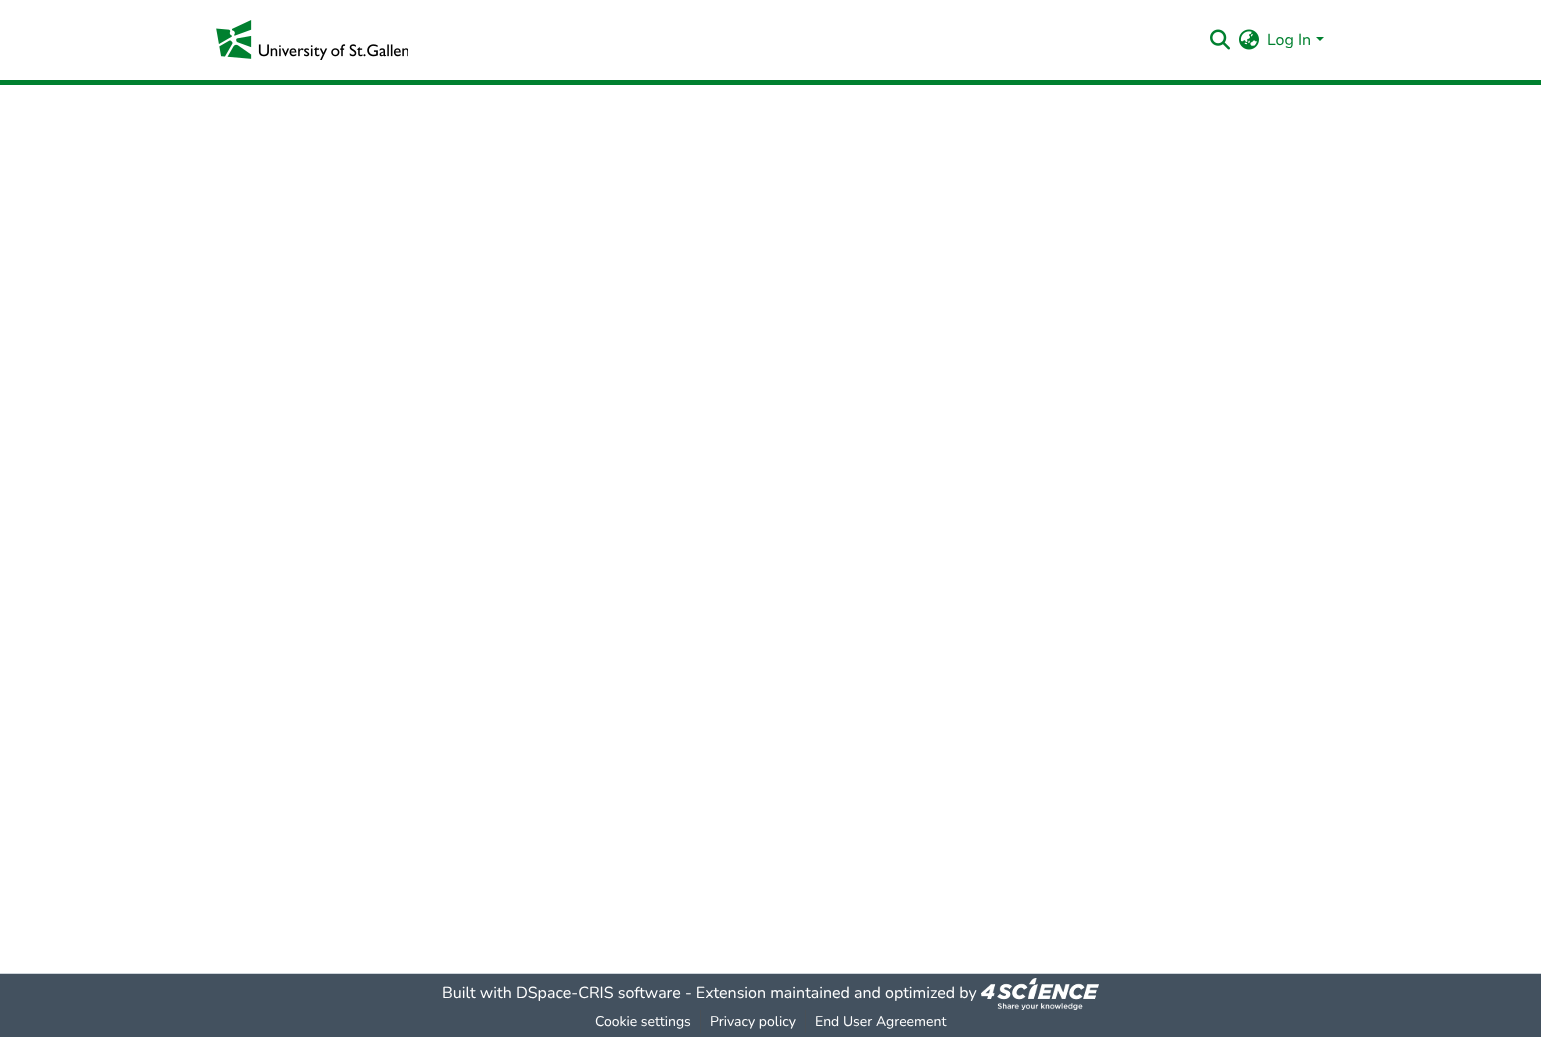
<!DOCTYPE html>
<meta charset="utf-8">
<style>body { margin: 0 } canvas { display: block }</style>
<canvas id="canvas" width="1541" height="1037"></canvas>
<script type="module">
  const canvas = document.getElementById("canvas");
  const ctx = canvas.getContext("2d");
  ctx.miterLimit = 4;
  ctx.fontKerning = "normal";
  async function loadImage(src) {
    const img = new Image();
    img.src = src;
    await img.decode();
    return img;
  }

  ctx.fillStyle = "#ffffff";
  ctx.fillRect(0, 0, 1541, 1037);
  ctx.fillStyle = "#00802f";
  ctx.fillRect(0, 80, 1541, 5);
  ctx.drawImage(await loadImage("img1.png"), 216, 20, 192, 40);
  ctx.drawImage(await loadImage("img2.png"), 1210, 29, 20, 21);
  ctx.drawImage(await loadImage("img3.png"), 1239, 29, 20, 21);
  ctx.font = "16px Nunito";
  ctx.fillText("Log In", 1267, 45);
  ctx.beginPath();
  ctx.moveTo(1316, 37);
  ctx.lineTo(1324, 37);
  ctx.lineTo(1320, 41);
  ctx.closePath();
  ctx.fill();
  ctx.fillStyle = "#43515f";
  ctx.fillRect(0, 974, 1541, 63);
  ctx.fillStyle = "#ced4da";
  ctx.fillRect(0, 973, 1541, 1);
  ctx.fillStyle = "#ffffff";
  ctx.fillText("Built with DSpace-CRIS software - Extension maintained and optimized by", 442, 998);
  ctx.drawImage(await loadImage("img4.png"), 981, 978, 118, 32);
  ctx.font = "14px Nunito";
  ctx.fillText("Cookie settings", 595, 1026);
  ctx.fillStyle = "#495057";
  ctx.fillRect(700, 1010, 1, 23);
  ctx.fillStyle = "#ffffff";
  ctx.fillText("Privacy policy", 710, 1026);
  ctx.fillStyle = "#495057";
  ctx.fillRect(805, 1010, 1, 23);
  ctx.fillStyle = "#ffffff";
  ctx.fillText("End User Agreement", 815, 1026);
</script>
